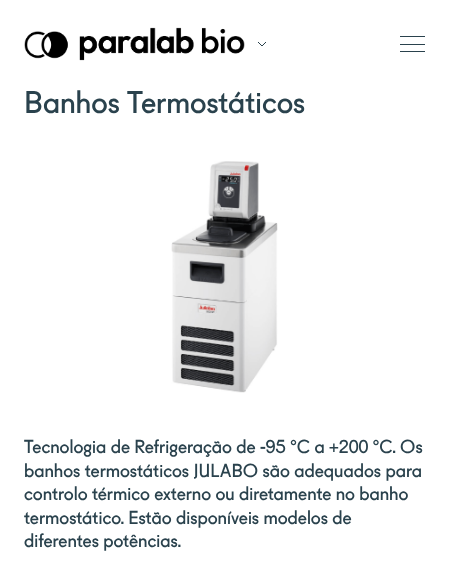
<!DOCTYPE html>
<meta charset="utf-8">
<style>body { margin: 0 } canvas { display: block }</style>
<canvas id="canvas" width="449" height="583"></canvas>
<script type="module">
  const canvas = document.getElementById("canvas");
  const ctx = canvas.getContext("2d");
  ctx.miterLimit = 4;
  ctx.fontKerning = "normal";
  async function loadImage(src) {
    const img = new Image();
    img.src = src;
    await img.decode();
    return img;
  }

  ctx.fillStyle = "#ffffff";
  ctx.fillRect(0, 0, 449, 583);
  ctx.drawImage(await loadImage("img1.png"), 24, 27, 221, 34);
  ctx.beginPath();
  ctx.moveTo(258, 42);
  ctx.lineTo(262, 46);
  ctx.lineTo(266, 42);
  ctx.strokeStyle = "#2a424d";
  ctx.stroke();
  ctx.fillStyle = "#2a424d";
  ctx.fillRect(400, 36, 25, 1);
  ctx.fillRect(400, 44, 25, 1);
  ctx.fillRect(400, 51, 25, 1);
  ctx.font = "30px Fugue";
  ctx.fillText("Banhos Termostáticos", 24, 113);
  ctx.drawImage(await loadImage("img2.png"), 171, 161, 107, 232);
  ctx.font = "18px Fugue";
  ctx.fillText("Tecnologia de Refrigeração de -95 °C a +200 °C. Os", 24, 453);
  ctx.fillText("banhos termostáticos JULABO são adequados para", 24, 477);
  ctx.fillText("controlo térmico externo ou diretamente no banho", 24, 500);
  ctx.fillText("termostático. Estão disponíveis modelos de", 24, 524);
  ctx.fillText("diferentes potências.", 24, 547);
</script>
